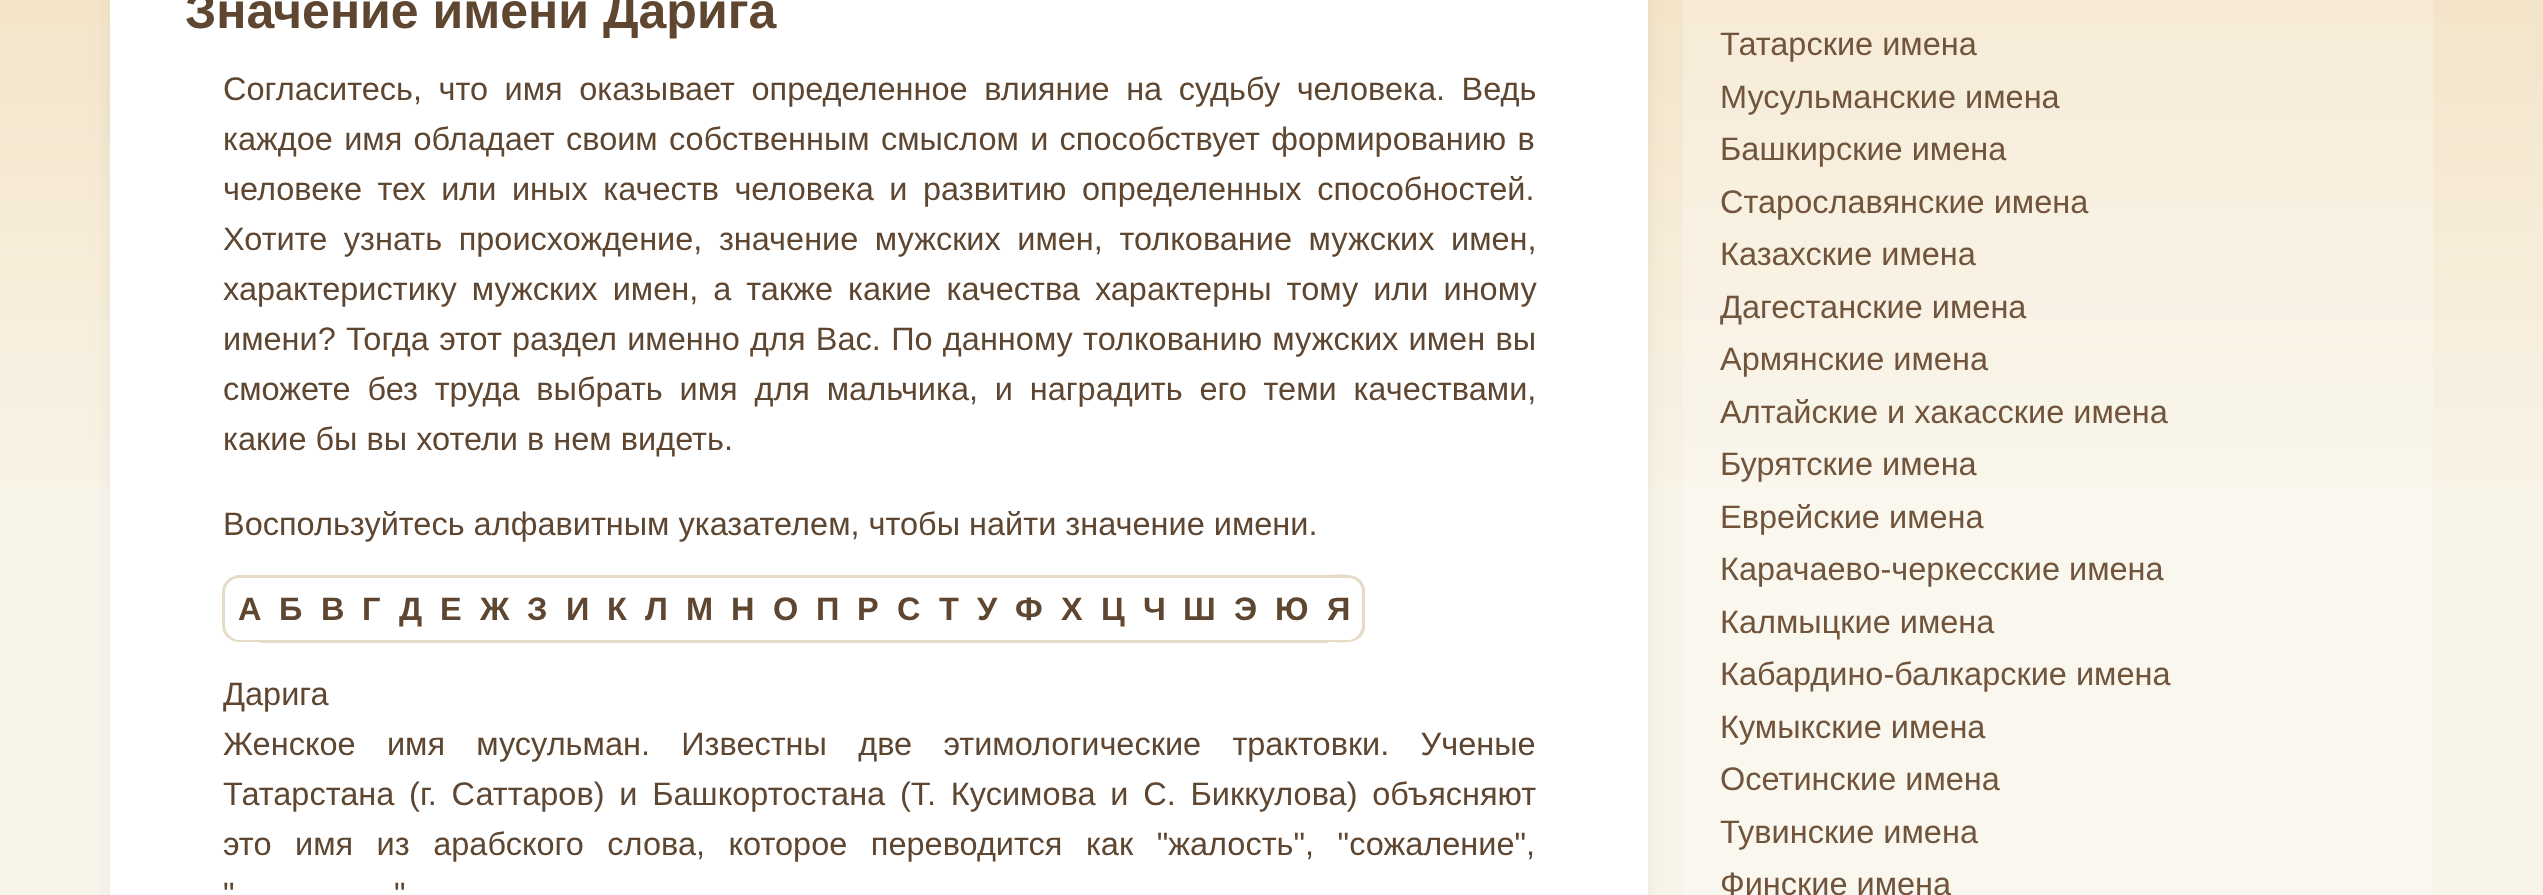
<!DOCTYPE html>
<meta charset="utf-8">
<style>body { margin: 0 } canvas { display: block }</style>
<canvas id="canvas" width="2543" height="895"></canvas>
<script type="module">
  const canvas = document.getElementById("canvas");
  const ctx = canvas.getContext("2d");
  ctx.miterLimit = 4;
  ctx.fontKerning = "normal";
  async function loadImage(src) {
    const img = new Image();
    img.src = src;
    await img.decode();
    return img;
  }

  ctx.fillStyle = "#f8f4ea";
  ctx.fillRect(0, 0, 2543, 895);
  ctx.drawImage(await loadImage("img1.png"), 0, 0, 2543, 486);
  ctx.fillStyle = "rgba(0, 0, 0, 0.05)";
  ctx.filter = "blur(9px)";
  ctx.beginPath();
  ctx.roundRect(110, -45, 1538, 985, 18);
  ctx.fill();
  ctx.filter = "none";
  ctx.fillStyle = "#ffffff";
  ctx.fillRect(110, 0, 1538, 895);
  ctx.font = "bold 50px Liberation Sans";
  ctx.fillStyle = "#5e4631";
  ctx.fillText("Значение имени Дарига", 185, 28);
  ctx.wordSpacing = "7.5px";
  ctx.font = "32.5px Liberation Sans";
  ctx.fillText("Согласитесь, что имя оказывает определенное влияние на судьбу человека. Ведь", 223, 100);
  ctx.wordSpacing = "2.25px";
  ctx.fillText("каждое имя обладает своим собственным смыслом и способствует формированию в", 223, 150);
  ctx.wordSpacing = "6.5px";
  ctx.fillText("человеке тех или иных качеств человека и развитию определенных способностей.", 223, 200);
  ctx.wordSpacing = "7.5px";
  ctx.fillText("Хотите узнать происхождение, значение мужских имен, толкование мужских имен,", 223, 250);
  ctx.wordSpacing = "6px";
  ctx.fillText("характеристику мужских имен, а также какие качества характерны тому или иному", 223, 300);
  ctx.wordSpacing = "1.25px";
  ctx.fillText("имени? Тогда этот раздел именно для Вас. По данному толкованию мужских имен вы", 223, 350);
  ctx.wordSpacing = "7.75px";
  ctx.fillText("сможете без труда выбрать имя для мальчика, и наградить его теми качествами,", 223, 400);
  ctx.wordSpacing = "0px";
  ctx.fillText("какие бы вы хотели в нем видеть.", 223, 450);
  ctx.fillText("Воспользуйтесь алфавитным указателем, чтобы найти значение имени.", 223, 535);
  ctx.fillStyle = "#e5dbc7";
  ctx.beginPath();
  ctx.moveTo(240, 575);
  ctx.lineTo(260, 575);
  ctx.lineTo(260, 642);
  ctx.lineTo(240, 642);
  ctx.bezierCurveTo(230, 642, 222, 635, 222, 625);
  ctx.lineTo(222, 592);
  ctx.bezierCurveTo(222, 583, 230, 575, 240, 575);
  ctx.closePath();
  ctx.moveTo(240, 578);
  ctx.lineTo(260, 578);
  ctx.lineTo(260, 640);
  ctx.lineTo(240, 640);
  ctx.bezierCurveTo(232, 640, 225, 633, 225, 625);
  ctx.lineTo(225, 592);
  ctx.bezierCurveTo(225, 584, 232, 578, 240, 578);
  ctx.closePath();
  ctx.fill("evenodd");
  ctx.font = "bold 32.5px Liberation Sans";
  ctx.fillStyle = "#5e4631";
  ctx.fillText("А", 238, 620);
  ctx.fillStyle = "#e5dbc7";
  ctx.fillRect(260, 575, 1068, 3);
  ctx.fillStyle = "#5e4631";
  ctx.fillText("Б", 279, 620);
  ctx.fillText("В", 321, 620);
  ctx.fillText("Г", 362, 620);
  ctx.fillText("Д", 399, 620);
  ctx.fillStyle = "#e5dbc7";
  ctx.fillRect(260, 640, 1068, 3);
  ctx.fillStyle = "#5e4631";
  ctx.fillText("Е", 440, 620);
  ctx.fillText("Ж", 480, 620);
  ctx.fillText("З", 527, 620);
  ctx.fillText("И", 566, 620);
  ctx.fillText("К", 607, 620);
  ctx.fillText("Л", 645, 620);
  ctx.fillText("М", 686, 620);
  ctx.fillText("Н", 731, 620);
  ctx.fillText("О", 773, 620);
  ctx.fillText("П", 816, 620);
  ctx.fillText("Р", 857, 620);
  ctx.fillText("С", 897, 620);
  ctx.fillText("Т", 939, 620);
  ctx.fillText("У", 977, 620);
  ctx.fillText("Ф", 1015, 620);
  ctx.fillText("Х", 1061, 620);
  ctx.fillText("Ц", 1101, 620);
  ctx.fillText("Ч", 1143, 620);
  ctx.fillText("Ш", 1183, 620);
  ctx.fillText("Э", 1234, 620);
  ctx.fillText("Ю", 1275, 620);
  ctx.fillStyle = "#e5dbc7";
  ctx.beginPath();
  ctx.moveTo(1328, 575);
  ctx.bezierCurveTo(1341, 575, 1361, 571, 1365, 589);
  ctx.lineTo(1365, 609);
  ctx.lineTo(1365, 629);
  ctx.bezierCurveTo(1361, 646, 1341, 642, 1328, 642);
  ctx.closePath();
  ctx.moveTo(1328, 578);
  ctx.lineTo(1348, 578);
  ctx.bezierCurveTo(1356, 578, 1362, 584, 1362, 592);
  ctx.lineTo(1362, 625);
  ctx.bezierCurveTo(1362, 633, 1356, 640, 1348, 640);
  ctx.lineTo(1328, 640);
  ctx.closePath();
  ctx.fill("evenodd");
  ctx.fillStyle = "#5e4631";
  ctx.fillText("Я", 1327, 620);
  ctx.font = "32.5px Liberation Sans";
  ctx.fillText("Дарига", 223, 705);
  ctx.wordSpacing = "22.25px";
  ctx.fillText("Женское имя мусульман. Известны две этимологические трактовки. Ученые", 223, 755);
  ctx.wordSpacing = "5.75px";
  ctx.fillText("Татарстана (г. Саттаров) и Башкортостана (Т. Кусимова и С. Биккулова) объясняют", 223, 805);
  ctx.wordSpacing = "14.5px";
  ctx.fillText("это имя из арабского слова, которое переводится как \"жалость\", \"сожаление\",", 223, 855);
  ctx.wordSpacing = "0px";
  ctx.fillText("\"", 223, 905);
  ctx.fillText("\"", 394, 905);
  ctx.fillStyle = "rgba(255, 255, 255, 0.25)";
  ctx.fillRect(1683, 0, 750, 895);
  ctx.fillStyle = "#70543b";
  ctx.fillText("Татарские имена", 1720, 55);
  ctx.fillText("Мусульманские имена", 1720, 108);
  ctx.fillText("Башкирские имена", 1720, 160);
  ctx.fillText("Старославянские имена", 1720, 213);
  ctx.fillText("Казахские имена", 1720, 265);
  ctx.fillText("Дагестанские имена", 1720, 318);
  ctx.fillText("Армянские имена", 1720, 370);
  ctx.fillText("Алтайские и хакасские имена", 1720, 423);
  ctx.fillText("Бурятские имена", 1720, 475);
  ctx.fillText("Еврейские имена", 1720, 528);
  ctx.fillText("Карачаево-черкесские имена", 1720, 580);
  ctx.fillText("Калмыцкие имена", 1720, 633);
  ctx.fillText("Кабардино-балкарские имена", 1720, 685);
  ctx.fillText("Кумыкские имена", 1720, 738);
  ctx.fillText("Осетинские имена", 1720, 790);
  ctx.fillText("Тувинские имена", 1720, 843);
  ctx.fillText("Финские имена", 1720, 895);
</script>
